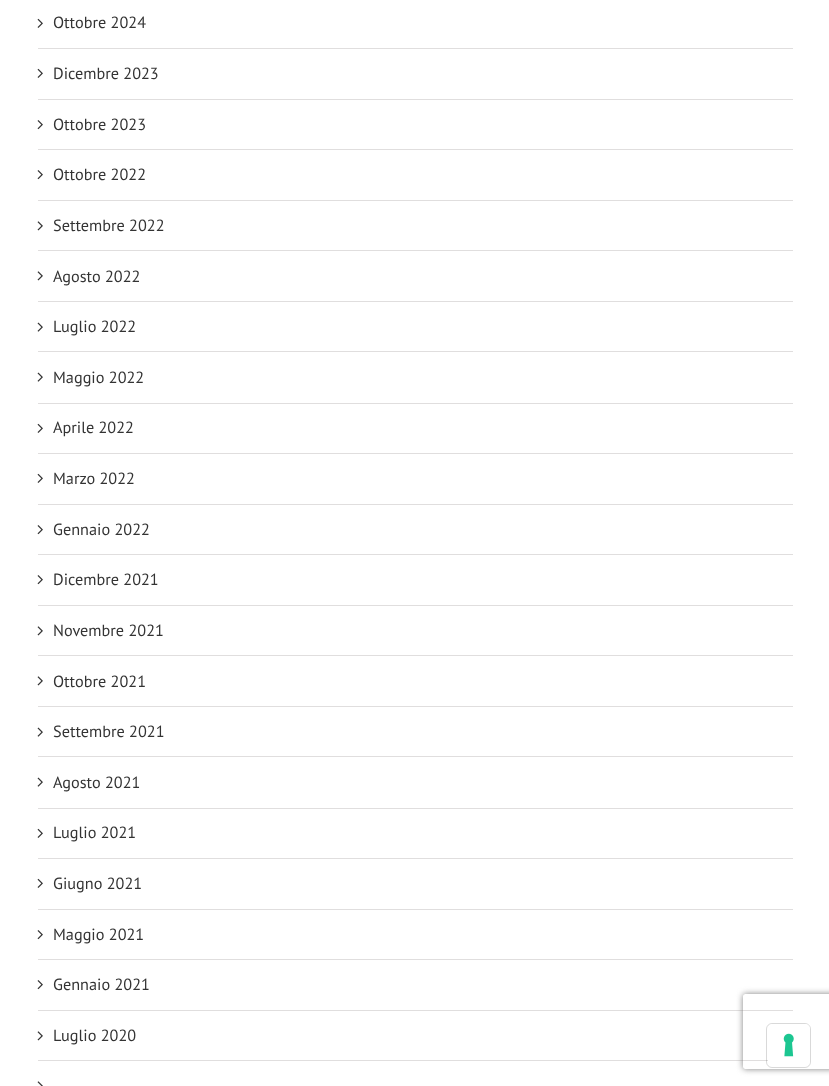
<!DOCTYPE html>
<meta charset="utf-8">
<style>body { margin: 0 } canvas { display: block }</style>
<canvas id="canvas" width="829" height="1086"></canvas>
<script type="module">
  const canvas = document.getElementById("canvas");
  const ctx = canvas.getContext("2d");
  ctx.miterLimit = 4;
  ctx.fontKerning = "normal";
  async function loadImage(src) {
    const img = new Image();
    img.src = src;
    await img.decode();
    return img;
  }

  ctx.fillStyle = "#ffffff";
  ctx.fillRect(0, 0, 829, 1086);
  ctx.fillStyle = "#e0dede";
  ctx.fillRect(38, 48, 755, 1);
  ctx.drawImage(await loadImage("img1.png"), 37, 18, 6, 10);
  ctx.font = "16.25px PT Sans";
  ctx.fillStyle = "#333333";
  ctx.fillText("Ottobre 2024", 53, 28);
  ctx.fillStyle = "#e0dede";
  ctx.fillRect(38, 99, 755, 1);
  ctx.drawImage(await loadImage("img1.png"), 37, 68, 6, 10);
  ctx.fillStyle = "#333333";
  ctx.fillText("Dicembre 2023", 53, 79);
  ctx.fillStyle = "#e0dede";
  ctx.fillRect(38, 149, 755, 1);
  ctx.drawImage(await loadImage("img2.png"), 37, 120, 6, 10);
  ctx.fillStyle = "#333333";
  ctx.fillText("Ottobre 2023", 53, 130);
  ctx.fillStyle = "#e0dede";
  ctx.fillRect(38, 200, 755, 1);
  ctx.drawImage(await loadImage("img2.png"), 37, 170, 6, 10);
  ctx.fillStyle = "#333333";
  ctx.fillText("Ottobre 2022", 53, 180);
  ctx.fillStyle = "#e0dede";
  ctx.fillRect(38, 250, 755, 1);
  ctx.drawImage(await loadImage("img3.png"), 37, 221, 6, 10);
  ctx.fillStyle = "#333333";
  ctx.fillText("Settembre 2022", 53, 231);
  ctx.fillStyle = "#e0dede";
  ctx.fillRect(38, 301, 755, 1);
  ctx.drawImage(await loadImage("img3.png"), 37, 271, 6, 10);
  ctx.fillStyle = "#333333";
  ctx.fillText("Agosto 2022", 53, 282);
  ctx.fillStyle = "#e0dede";
  ctx.fillRect(38, 351, 755, 1);
  ctx.drawImage(await loadImage("img4.png"), 37, 322, 6, 10);
  ctx.fillStyle = "#333333";
  ctx.fillText("Luglio 2022", 53, 332);
  ctx.fillStyle = "#e0dede";
  ctx.fillRect(38, 403, 755, 1);
  ctx.drawImage(await loadImage("img4.png"), 37, 372, 6, 10);
  ctx.fillStyle = "#333333";
  ctx.fillText("Maggio 2022", 53, 383);
  ctx.fillStyle = "#e0dede";
  ctx.fillRect(38, 453, 755, 1);
  ctx.drawImage(await loadImage("img1.png"), 37, 423, 6, 10);
  ctx.fillStyle = "#333333";
  ctx.fillText("Aprile 2022", 53, 433);
  ctx.fillStyle = "#e0dede";
  ctx.fillRect(38, 504, 755, 1);
  ctx.drawImage(await loadImage("img1.png"), 37, 473, 6, 10);
  ctx.fillStyle = "#333333";
  ctx.fillText("Marzo 2022", 53, 484);
  ctx.fillStyle = "#e0dede";
  ctx.fillRect(38, 554, 755, 1);
  ctx.drawImage(await loadImage("img2.png"), 37, 525, 6, 10);
  ctx.fillStyle = "#333333";
  ctx.fillText("Gennaio 2022", 53, 535);
  ctx.fillStyle = "#e0dede";
  ctx.fillRect(38, 605, 755, 1);
  ctx.drawImage(await loadImage("img2.png"), 37, 575, 6, 10);
  ctx.fillStyle = "#333333";
  ctx.fillText("Dicembre 2021", 53, 585);
  ctx.fillStyle = "#e0dede";
  ctx.fillRect(38, 655, 755, 1);
  ctx.drawImage(await loadImage("img3.png"), 37, 626, 6, 10);
  ctx.fillStyle = "#333333";
  ctx.fillText("Novembre 2021", 53, 636);
  ctx.fillStyle = "#e0dede";
  ctx.fillRect(38, 706, 755, 1);
  ctx.drawImage(await loadImage("img3.png"), 37, 676, 6, 10);
  ctx.fillStyle = "#333333";
  ctx.fillText("Ottobre 2021", 53, 687);
  ctx.fillStyle = "#e0dede";
  ctx.fillRect(38, 756, 755, 1);
  ctx.drawImage(await loadImage("img4.png"), 37, 727, 6, 10);
  ctx.fillStyle = "#333333";
  ctx.fillText("Settembre 2021", 53, 737);
  ctx.fillStyle = "#e0dede";
  ctx.fillRect(38, 808, 755, 1);
  ctx.drawImage(await loadImage("img4.png"), 37, 777, 6, 10);
  ctx.fillStyle = "#333333";
  ctx.fillText("Agosto 2021", 53, 788);
  ctx.fillStyle = "#e0dede";
  ctx.fillRect(38, 858, 755, 1);
  ctx.drawImage(await loadImage("img1.png"), 37, 828, 6, 10);
  ctx.fillStyle = "#333333";
  ctx.fillText("Luglio 2021", 53, 838);
  ctx.fillStyle = "#e0dede";
  ctx.fillRect(38, 909, 755, 1);
  ctx.drawImage(await loadImage("img1.png"), 37, 878, 6, 10);
  ctx.fillStyle = "#333333";
  ctx.fillText("Giugno 2021", 53, 889);
  ctx.fillStyle = "#e0dede";
  ctx.fillRect(38, 959, 755, 1);
  ctx.drawImage(await loadImage("img2.png"), 37, 930, 6, 10);
  ctx.fillStyle = "#333333";
  ctx.fillText("Maggio 2021", 53, 940);
  ctx.fillStyle = "#e0dede";
  ctx.fillRect(38, 1010, 755, 1);
  ctx.drawImage(await loadImage("img2.png"), 37, 980, 6, 10);
  ctx.fillStyle = "#333333";
  ctx.fillText("Gennaio 2021", 53, 990);
  ctx.fillStyle = "#e0dede";
  ctx.fillRect(38, 1060, 730, 1);
  ctx.drawImage(await loadImage("img3.png"), 37, 1031, 6, 10);
  ctx.fillStyle = "#333333";
  ctx.fillText("Luglio 2020", 53, 1041);
  ctx.drawImage(await loadImage("img5.png"), 37, 1081, 6, 5);
  ctx.save();
  ctx.beginPath();
  ctx.moveTo(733, 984);
  ctx.lineTo(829, 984);
  ctx.lineTo(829, 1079);
  ctx.lineTo(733, 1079);
  ctx.closePath();
  ctx.moveTo(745.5, 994);
  ctx.lineTo(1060.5, 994);
  ctx.bezierCurveTo(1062, 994, 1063, 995, 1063, 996.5);
  ctx.lineTo(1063, 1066.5);
  ctx.bezierCurveTo(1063, 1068, 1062, 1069, 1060.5, 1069);
  ctx.lineTo(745.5, 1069);
  ctx.bezierCurveTo(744, 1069, 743, 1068, 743, 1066.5);
  ctx.lineTo(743, 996.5);
  ctx.bezierCurveTo(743, 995, 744, 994, 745.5, 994);
  ctx.closePath();
  ctx.clip("evenodd");
  ctx.fillStyle = "#808080";
  ctx.filter = "blur(3px)";
  ctx.beginPath();
  ctx.roundRect(743, 994, 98, 75, 2.5);
  ctx.fill();
  ctx.filter = "none";
  ctx.restore();
  ctx.beginPath();
  ctx.roundRect(766.5, 1023.5, 44, 44, 5.5);
  ctx.strokeStyle = "rgba(0, 0, 0, 0.15)";
  ctx.stroke();
  ctx.fillStyle = "#ffffff";
  ctx.beginPath();
  ctx.roundRect(768, 1024, 42, 42, 5);
  ctx.fill();
  ctx.drawImage(await loadImage("img6.png"), 783, 1033, 11, 24);
</script>
